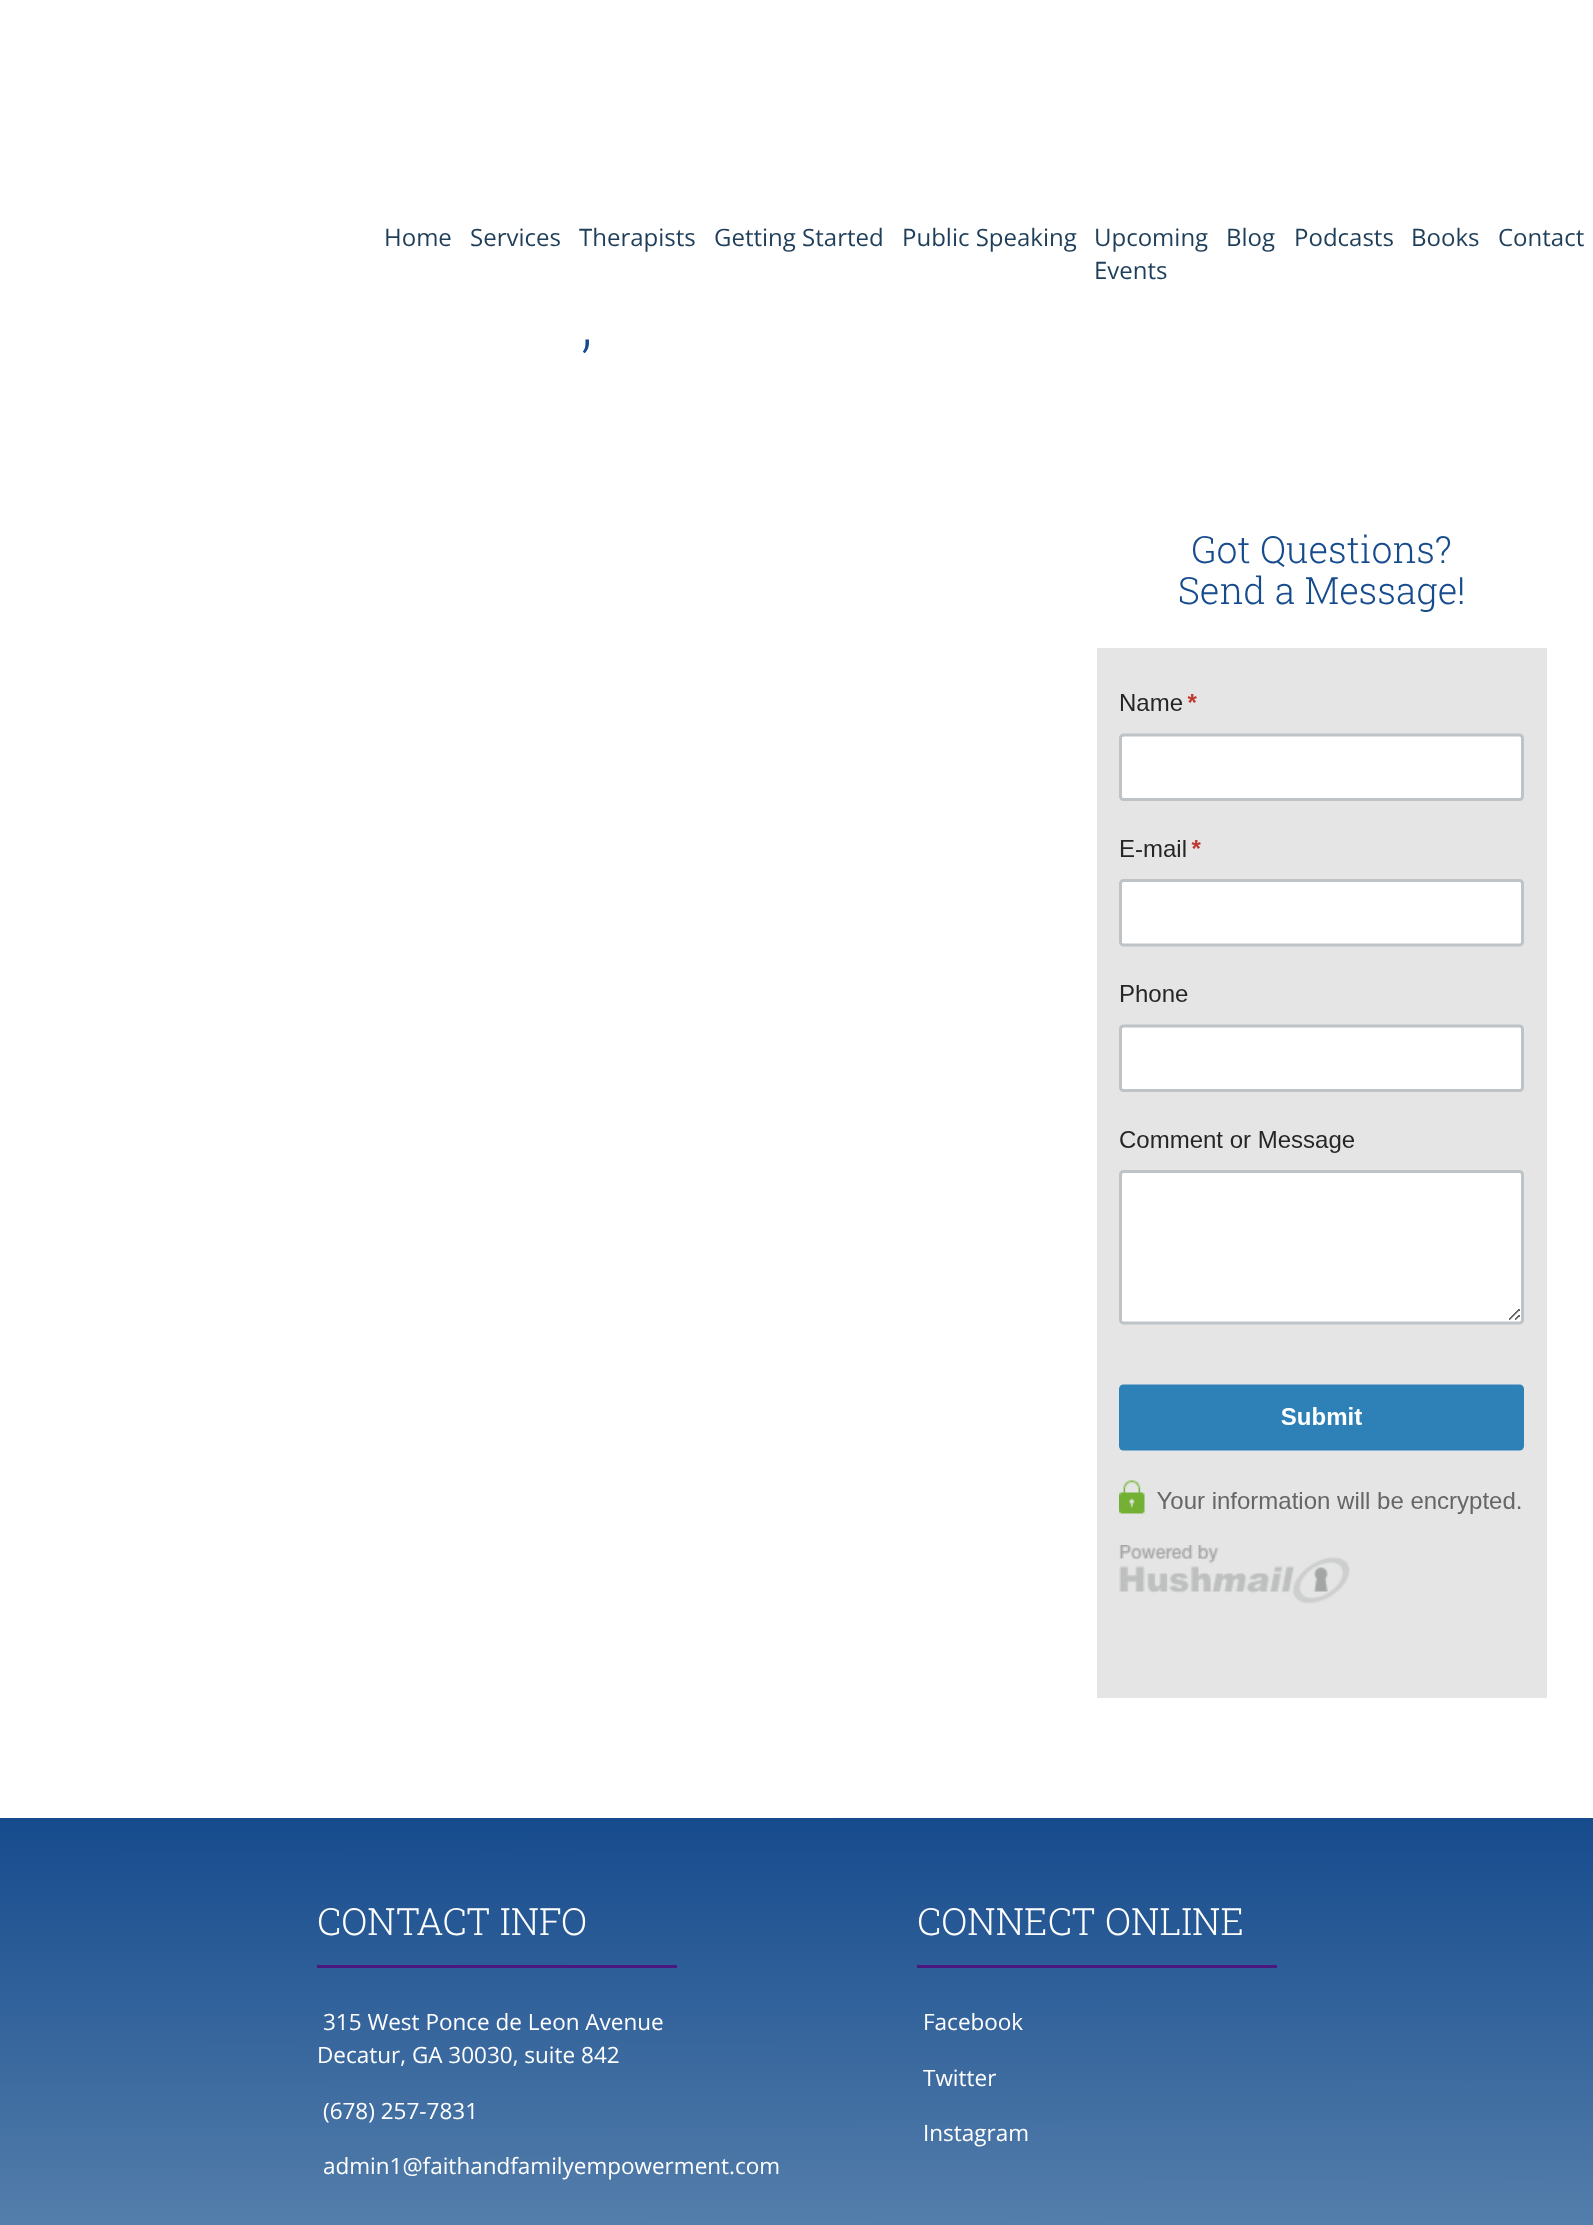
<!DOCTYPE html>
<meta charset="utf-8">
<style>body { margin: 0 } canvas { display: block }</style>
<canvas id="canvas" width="1593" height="2225"></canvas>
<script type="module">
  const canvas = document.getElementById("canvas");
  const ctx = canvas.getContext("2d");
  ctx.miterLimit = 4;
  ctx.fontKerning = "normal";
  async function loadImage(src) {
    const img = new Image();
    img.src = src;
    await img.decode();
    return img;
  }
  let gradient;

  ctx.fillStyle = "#ffffff";
  ctx.fillRect(0, 0, 1593, 2225);
  ctx.font = "24px Open Sans";
  ctx.fillStyle = "#1e3e59";
  ctx.fillText("Home", 384, 246);
  ctx.fillText("Services", 470, 246);
  ctx.fillText("Therapists", 579, 246);
  ctx.fillText("Getting Started", 714, 246);
  ctx.fillText("Public Speaking", 902, 246);
  ctx.fillText("Upcoming", 1094, 246);
  ctx.fillText("Events", 1094, 279);
  ctx.fillText("Blog", 1226, 246);
  ctx.fillText("Podcasts", 1294, 246);
  ctx.fillText("Books", 1411, 246);
  ctx.fillText("Contact", 1498, 246);
  ctx.font = "300 60px Roboto Slab";
  ctx.fillStyle = "#164b8d";
  ctx.fillText(",", 581, 345);
  ctx.font = "300 37.5px Roboto Slab";
  ctx.fillText("Got Questions?", 1191, 563);
  ctx.fillText("Send a Message!", 1178, 604);
  ctx.fillStyle = "#e5e5e5";
  ctx.fillRect(1097, 648, 450, 1050);
  ctx.drawImage(await loadImage("img1.png"), 1119, 694, 405, 910);
  gradient = ctx.createLinearGradient(797, 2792, 796, 1818);
  gradient.addColorStop(0, "#aac5d5");
  gradient.addColorStop(1, "#164b8d");
  ctx.fillStyle = gradient;
  ctx.fillRect(0, 1818, 1593, 407);
  ctx.fillStyle = "#49197f";
  ctx.fillRect(317, 1965, 360, 3);
  ctx.fillStyle = "#ffffff";
  ctx.fillText("CONTACT INFO", 317, 1935);
  ctx.font = "22.5px Open Sans";
  ctx.fillText("315 West Ponce de Leon Avenue", 323, 2030);
  ctx.fillText("Decatur, GA 30030, suite 842", 317, 2063);
  ctx.fillText("(678) 257-7831", 323, 2119);
  ctx.fillText("admin1@faithandfamilyempowerment.com", 323, 2174);
  ctx.fillStyle = "#49197f";
  ctx.fillRect(917, 1965, 360, 3);
  ctx.font = "300 37.5px Roboto Slab";
  ctx.fillStyle = "#ffffff";
  ctx.fillText("CONNECT ONLINE", 917, 1935);
  ctx.font = "22.5px Open Sans";
  ctx.fillText("Facebook", 923, 2030);
  ctx.fillText("Twitter", 923, 2086);
  ctx.fillText("Instagram", 923, 2141);
</script>
